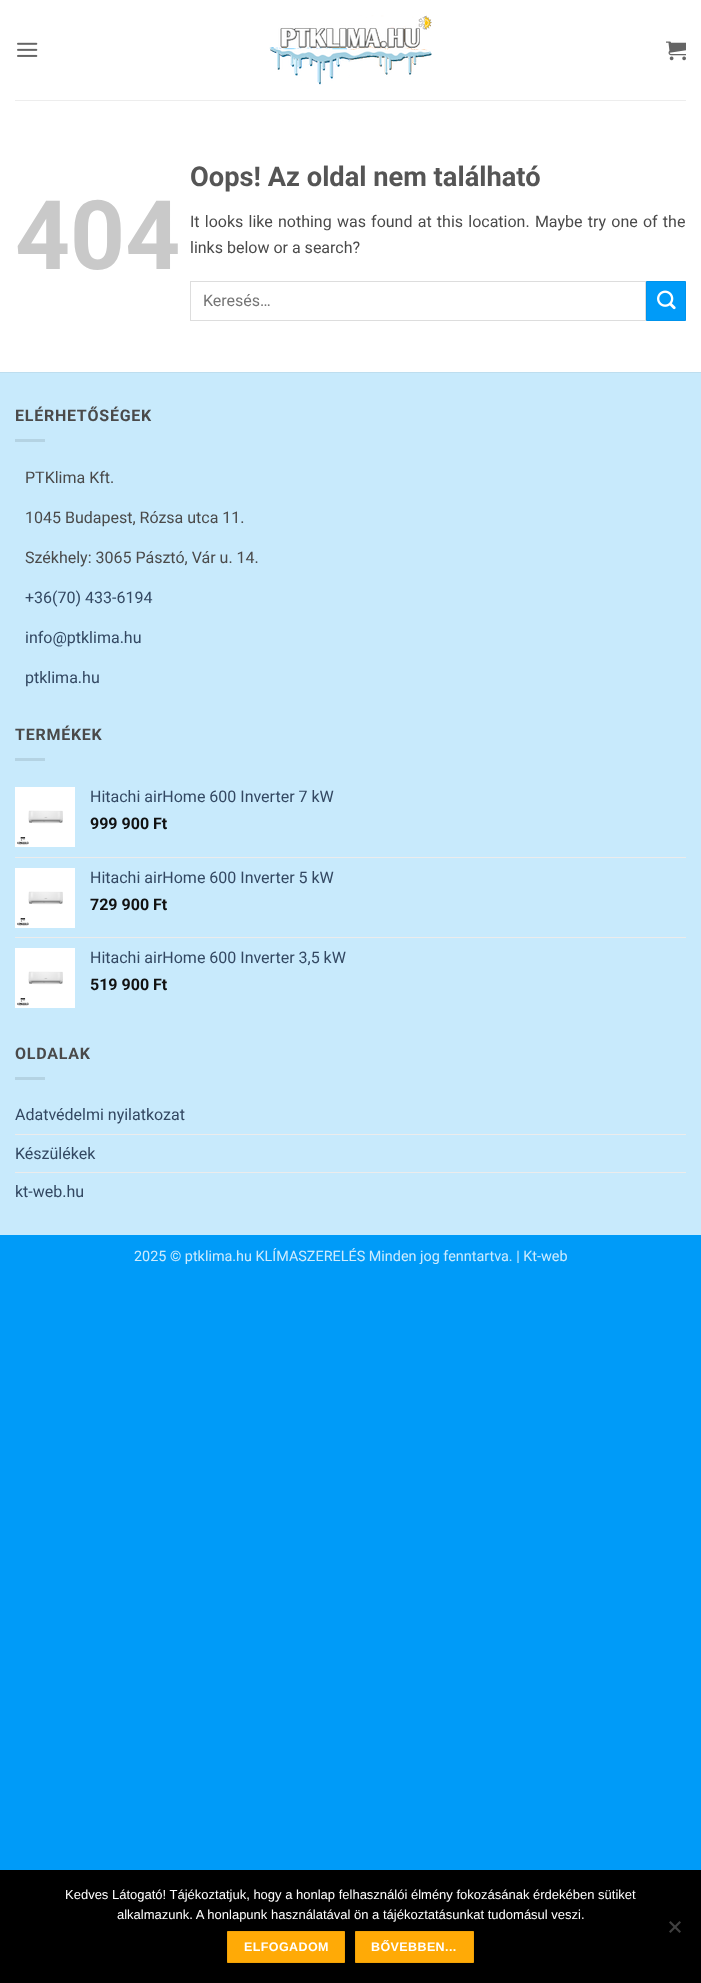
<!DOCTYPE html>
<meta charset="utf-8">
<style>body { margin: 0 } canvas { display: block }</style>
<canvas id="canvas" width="701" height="1983"></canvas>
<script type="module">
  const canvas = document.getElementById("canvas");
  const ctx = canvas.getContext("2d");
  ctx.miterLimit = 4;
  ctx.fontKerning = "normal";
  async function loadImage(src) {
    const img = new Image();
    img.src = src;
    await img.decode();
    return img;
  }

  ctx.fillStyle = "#009bf8";
  ctx.fillRect(0, 0, 701, 1983);
  ctx.fillStyle = "#ffffff";
  ctx.fillRect(0, 0, 701, 372);
  ctx.drawImage(await loadImage("img1.png"), 17, 42, 21, 15);
  ctx.drawImage(await loadImage("img2.png"), 269, 15, 163, 70);
  ctx.drawImage(await loadImage("img3.png"), 666, 41, 20, 20);
  ctx.fillStyle = "#ededed";
  ctx.fillRect(15, 100, 671, 1);
  ctx.font = "bold 96px Roboto";
  ctx.fillStyle = "#c9c9c9";
  ctx.fillText("404", 15, 269);
  ctx.font = "bold 27.25px Roboto";
  ctx.fillStyle = "#555555";
  ctx.fillText("Oops! Az oldal nem található", 190, 186);
  ctx.wordSpacing = "1.25px";
  ctx.font = "16px Roboto";
  ctx.fillStyle = "#4a4a4a";
  ctx.fillText("It looks like nothing was found at this location. Maybe try one of the", 190, 227);
  ctx.wordSpacing = "0px";
  ctx.fillText("links below or a search?", 190, 253);
  ctx.strokeStyle = "#dddddd";
  ctx.strokeRect(190.5, 281.5, 455, 39);
  ctx.fillStyle = "#757575";
  ctx.fillText("Keresés…", 203, 306);
  ctx.fillStyle = "#009bf8";
  ctx.beginPath();
  ctx.rect(646.5, 281.5, 39, 39);
  ctx.fill();
  ctx.strokeStyle = "#0093ec";
  ctx.stroke();
  ctx.drawImage(await loadImage("img4.png"), 657, 290, 19, 20);
  ctx.fillStyle = "#c8eafc";
  ctx.fillRect(0, 373, 701, 862);
  ctx.fillStyle = "#bedeef";
  ctx.fillRect(0, 372, 701, 1);
  ctx.letterSpacing = "0.75px";
  ctx.font = "bold 16px Roboto";
  ctx.fillStyle = "#4a4a4a";
  ctx.fillText("ELÉRHETŐSÉGEK", 15, 421);
  ctx.fillStyle = "#b4d3e3";
  ctx.fillRect(15, 439, 30, 3);
  ctx.letterSpacing = "0px";
  ctx.font = "16px Roboto";
  ctx.fillStyle = "#4a4a4a";
  ctx.fillText("PTKlima Kft.", 25, 483);
  ctx.fillText("1045 Budapest, Rózsa utca 11.", 25, 523);
  ctx.fillText("Székhely: 3065 Pásztó, Vár u. 14.", 25, 563);
  ctx.fillStyle = "#334862";
  ctx.fillText("+36(70) 433-6194", 25, 603);
  ctx.fillText("info@ptklima.hu", 25, 643);
  ctx.fillText("ptklima.hu", 25, 683);
  ctx.letterSpacing = "0.75px";
  ctx.font = "bold 16px Roboto";
  ctx.fillStyle = "#4a4a4a";
  ctx.fillText("TERMÉKEK", 15, 740);
  ctx.fillStyle = "#b4d3e3";
  ctx.fillRect(15, 758, 30, 3);
  ctx.drawImage(await loadImage("img5.png"), 15, 787, 60, 60);
  ctx.letterSpacing = "0px";
  ctx.font = "16px Roboto";
  ctx.fillStyle = "#334862";
  ctx.fillText("Hitachi airHome 600 Inverter 7 kW", 90, 802);
  ctx.font = "bold 16px Roboto";
  ctx.fillStyle = "#111111";
  ctx.fillText("999 900 Ft", 90, 829);
  ctx.fillStyle = "#ececec";
  ctx.fillRect(15, 857, 671, 1);
  ctx.drawImage(await loadImage("img6.png"), 15, 868, 60, 60);
  ctx.font = "16px Roboto";
  ctx.fillStyle = "#334862";
  ctx.fillText("Hitachi airHome 600 Inverter 5 kW", 90, 883);
  ctx.font = "bold 16px Roboto";
  ctx.fillStyle = "#111111";
  ctx.fillText("729 900 Ft", 90, 910);
  ctx.fillStyle = "#ececec";
  ctx.fillRect(15, 937, 671, 1);
  ctx.drawImage(await loadImage("img6.png"), 15, 948, 60, 60);
  ctx.font = "16px Roboto";
  ctx.fillStyle = "#334862";
  ctx.fillText("Hitachi airHome 600 Inverter 3,5 kW", 90, 963);
  ctx.font = "bold 16px Roboto";
  ctx.fillStyle = "#111111";
  ctx.fillText("519 900 Ft", 90, 990);
  ctx.letterSpacing = "0.75px";
  ctx.fillStyle = "#4a4a4a";
  ctx.fillText("OLDALAK", 15, 1059);
  ctx.fillStyle = "#b4d3e3";
  ctx.fillRect(15, 1077, 30, 3);
  ctx.letterSpacing = "0px";
  ctx.font = "16px Roboto";
  ctx.fillStyle = "#334862";
  ctx.fillText("Adatvédelmi nyilatkozat", 15, 1120);
  ctx.fillStyle = "#ececec";
  ctx.fillRect(15, 1134, 671, 1);
  ctx.fillStyle = "#334862";
  ctx.fillText("Készülékek", 15, 1159);
  ctx.fillStyle = "#ececec";
  ctx.fillRect(15, 1172, 671, 1);
  ctx.fillStyle = "#334862";
  ctx.fillText("kt-web.hu", 15, 1197);
  ctx.font = "14.4px Roboto";
  ctx.fillStyle = "#ccebfe";
  ctx.fillText("2025 © ptklima.hu KLÍMASZERELÉS Minden jog fenntartva. | Kt-web", 134, 1261);
  ctx.fillStyle = "#000000";
  ctx.fillRect(0, 1870, 701, 113);
  ctx.font = "13px Liberation Sans";
  ctx.fillStyle = "#ffffff";
  ctx.fillText("Kedves Látogató! Tájékoztatjuk, hogy a honlap felhasználói élmény fokozásának érdekében sütiket", 65, 1899);
  ctx.fillText("alkalmazunk. A honlapunk használatával ön a tájékoztatásunkat tudomásul veszi.", 117, 1919);
  ctx.fillStyle = "#404040";
  ctx.beginPath();
  ctx.moveTo(679.5, 1921);
  ctx.lineTo(681, 1922.5);
  ctx.lineTo(670.5, 1933);
  ctx.lineTo(669, 1931.5);
  ctx.closePath();
  ctx.fill();
  ctx.beginPath();
  ctx.moveTo(669, 1922.5);
  ctx.lineTo(670.5, 1921);
  ctx.lineTo(681, 1931.5);
  ctx.lineTo(679.5, 1933);
  ctx.closePath();
  ctx.fill();
  ctx.fillStyle = "#ffaa06";
  ctx.beginPath();
  ctx.rect(227.5, 1931.5, 117, 31);
  ctx.fill();
  ctx.strokeStyle = "#f2a206";
  ctx.stroke();
  ctx.letterSpacing = "0.4px";
  ctx.font = "bold 12.5px Liberation Sans";
  ctx.fillStyle = "#ffffff";
  ctx.fillText("ELFOGADOM", 244, 1951);
  ctx.fillStyle = "#ffaa06";
  ctx.beginPath();
  ctx.rect(355.5, 1931.5, 118, 31);
  ctx.fill();
  ctx.stroke();
  ctx.fillStyle = "#ffffff";
  ctx.fillText("BŐVEBBEN...", 371, 1951);
</script>
